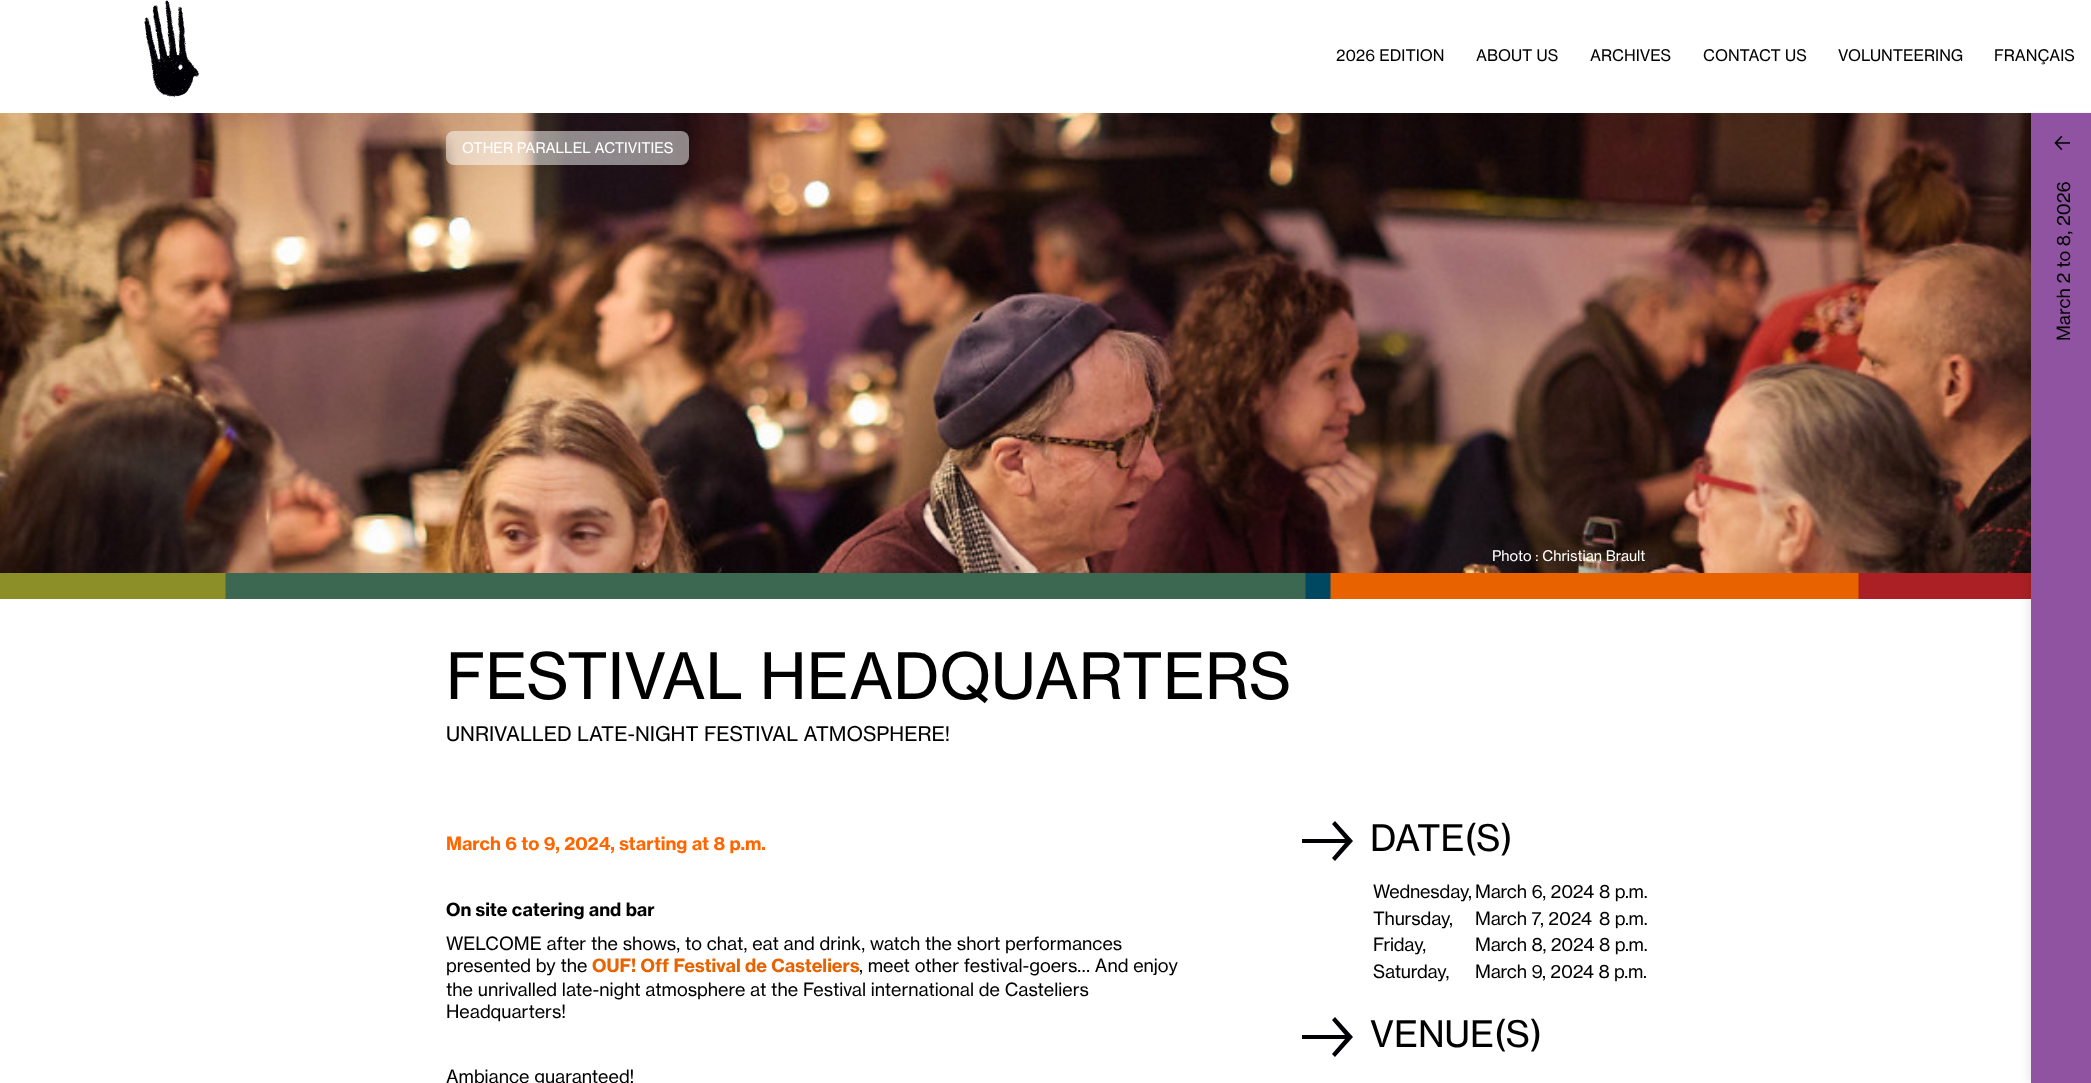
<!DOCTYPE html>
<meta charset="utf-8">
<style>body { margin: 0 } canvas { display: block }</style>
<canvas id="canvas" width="2091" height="1083"></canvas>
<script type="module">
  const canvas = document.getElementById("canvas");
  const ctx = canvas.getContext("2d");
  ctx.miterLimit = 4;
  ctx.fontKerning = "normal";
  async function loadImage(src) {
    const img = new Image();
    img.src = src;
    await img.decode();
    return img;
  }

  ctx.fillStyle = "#ffffff";
  ctx.fillRect(0, 0, 2091, 1083);
  ctx.drawImage(await loadImage("img2.png"), 0, 113, 2031, 460);
  ctx.drawImage(await loadImage("img3.png"), 225, 573, 1806, 26);
  ctx.fillStyle = "rgba(0, 0, 0, 0.1)";
  ctx.filter = "blur(5px)";
  ctx.beginPath();
  ctx.rect(2029, 113, 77, 970);
  ctx.fill();
  ctx.filter = "none";
  ctx.fillStyle = "#ffffff";
  ctx.fillRect(2026, 107, 65, 5);
  ctx.drawImage(await loadImage("img1.png"), 144, 0, 56, 97);
  ctx.font = "15.75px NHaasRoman";
  ctx.fillStyle = "#000000";
  ctx.fillText("2026 EDITION", 1336, 61);
  ctx.fillText("ABOUT US", 1476, 61);
  ctx.fillText("ARCHIVES", 1590, 61);
  ctx.fillText("CONTACT US", 1703, 61);
  ctx.fillText("VOLUNTEERING", 1838, 61);
  ctx.fillText("FRANÇAIS", 1994, 61);
  ctx.fillStyle = "rgba(255, 255, 255, 0.5)";
  ctx.beginPath();
  ctx.roundRect(446, 131, 243, 34, 8);
  ctx.fill();
  ctx.font = "14.4px NHaasRoman";
  ctx.fillStyle = "#ffffff";
  ctx.fillText("OTHER PARALLEL ACTIVITIES", 462, 153);
  ctx.fillText("Photo : Christian Brault", 1492, 561);
  ctx.fillStyle = "#8c8f27";
  ctx.fillRect(0, 573, 225, 26);
  ctx.fillStyle = "#8f53a1";
  ctx.fillRect(2031, 113, 60, 970);
  ctx.drawImage(await loadImage("img4.png"), 2054, 135, 16, 16);
  ctx.font = "18px NHaasRoman";
  ctx.fillStyle = "#000000";
  ctx.save();
  ctx.translate(2070, 226);
  ctx.rotate(-90 * Math.PI / 180);
  ctx.fillText("2026", 0, 0);
  ctx.restore();
  ctx.save();
  ctx.translate(2070, 341);
  ctx.rotate(-90 * Math.PI / 180);
  ctx.fillText("March 2 to 8,", 0, 0);
  ctx.restore();
  ctx.font = "63px NHaasRoman";
  ctx.fillText("FESTIVAL HEADQUARTERS", 446, 699);
  ctx.font = "20px NHaasRoman";
  ctx.fillText("UNRIVALLED LATE-NIGHT FESTIVAL ATMOSPHERE!", 446, 741);
  ctx.font = "bold 18px NHaasRoman";
  ctx.fillStyle = "#ff6600";
  ctx.fillText("March 6 to 9, 2024, starting at 8 p.m.", 446, 850);
  ctx.fillStyle = "#000000";
  ctx.fillText("On site catering and bar", 446, 916);
  ctx.font = "18px NHaasRoman";
  ctx.fillText("WELCOME after the shows, to chat, eat and drink, watch the short performances", 446, 950);
  ctx.fillText("presented by the", 446, 972);
  ctx.font = "bold 18px NHaasRoman";
  ctx.fillStyle = "#e86300";
  ctx.fillText("OUF! Off Festival de Casteliers", 592, 972);
  ctx.font = "18px NHaasRoman";
  ctx.fillStyle = "#000000";
  ctx.fillText(", meet other festival-goers… And enjoy", 859, 972);
  ctx.fillText("the unrivalled late-night atmosphere at the Festival international de Casteliers", 446, 996);
  ctx.fillText("Headquarters!", 446, 1018);
  ctx.fillText("Ambiance guaranteed!", 446, 1083);
  ctx.fillStyle = "#000005";
  ctx.beginPath();
  ctx.moveTo(1302, 843);
  ctx.lineTo(1345, 843);
  ctx.lineTo(1332, 858);
  ctx.lineTo(1335, 861);
  ctx.lineTo(1353, 841);
  ctx.lineTo(1335, 821);
  ctx.lineTo(1332, 824);
  ctx.lineTo(1345, 839);
  ctx.lineTo(1302, 839);
  ctx.closePath();
  ctx.fill();
  ctx.font = "36px NHaasRoman";
  ctx.fillStyle = "#000000";
  ctx.fillText("DATE(S)", 1370, 851);
  ctx.letterSpacing = "-0.2px";
  ctx.font = "18px NHaasRoman";
  ctx.fillText("Wednesday,", 1373, 898);
  ctx.fillText("March 6, 2024", 1475, 898);
  ctx.fillText("8 p.m.", 1599, 898);
  ctx.fillText("Thursday,", 1373, 925);
  ctx.fillText("March 7, 2024", 1475, 925);
  ctx.fillText("8 p.m.", 1599, 925);
  ctx.fillText("Friday,", 1373, 951);
  ctx.fillText("March 8, 2024", 1475, 951);
  ctx.fillText("8 p.m.", 1599, 951);
  ctx.fillText("Saturday,", 1373, 978);
  ctx.fillText("March 9, 2024 8 p.m.", 1475, 978);
  ctx.fillStyle = "#000005";
  ctx.beginPath();
  ctx.moveTo(1302, 1039);
  ctx.lineTo(1345, 1039);
  ctx.lineTo(1332, 1054);
  ctx.lineTo(1335, 1057);
  ctx.lineTo(1353, 1037);
  ctx.lineTo(1335, 1017);
  ctx.lineTo(1332, 1020);
  ctx.lineTo(1345, 1035);
  ctx.lineTo(1302, 1035);
  ctx.closePath();
  ctx.fill();
  ctx.letterSpacing = "0px";
  ctx.font = "36px NHaasRoman";
  ctx.fillStyle = "#000000";
  ctx.fillText("VENUE(S)", 1370, 1047);
</script>
